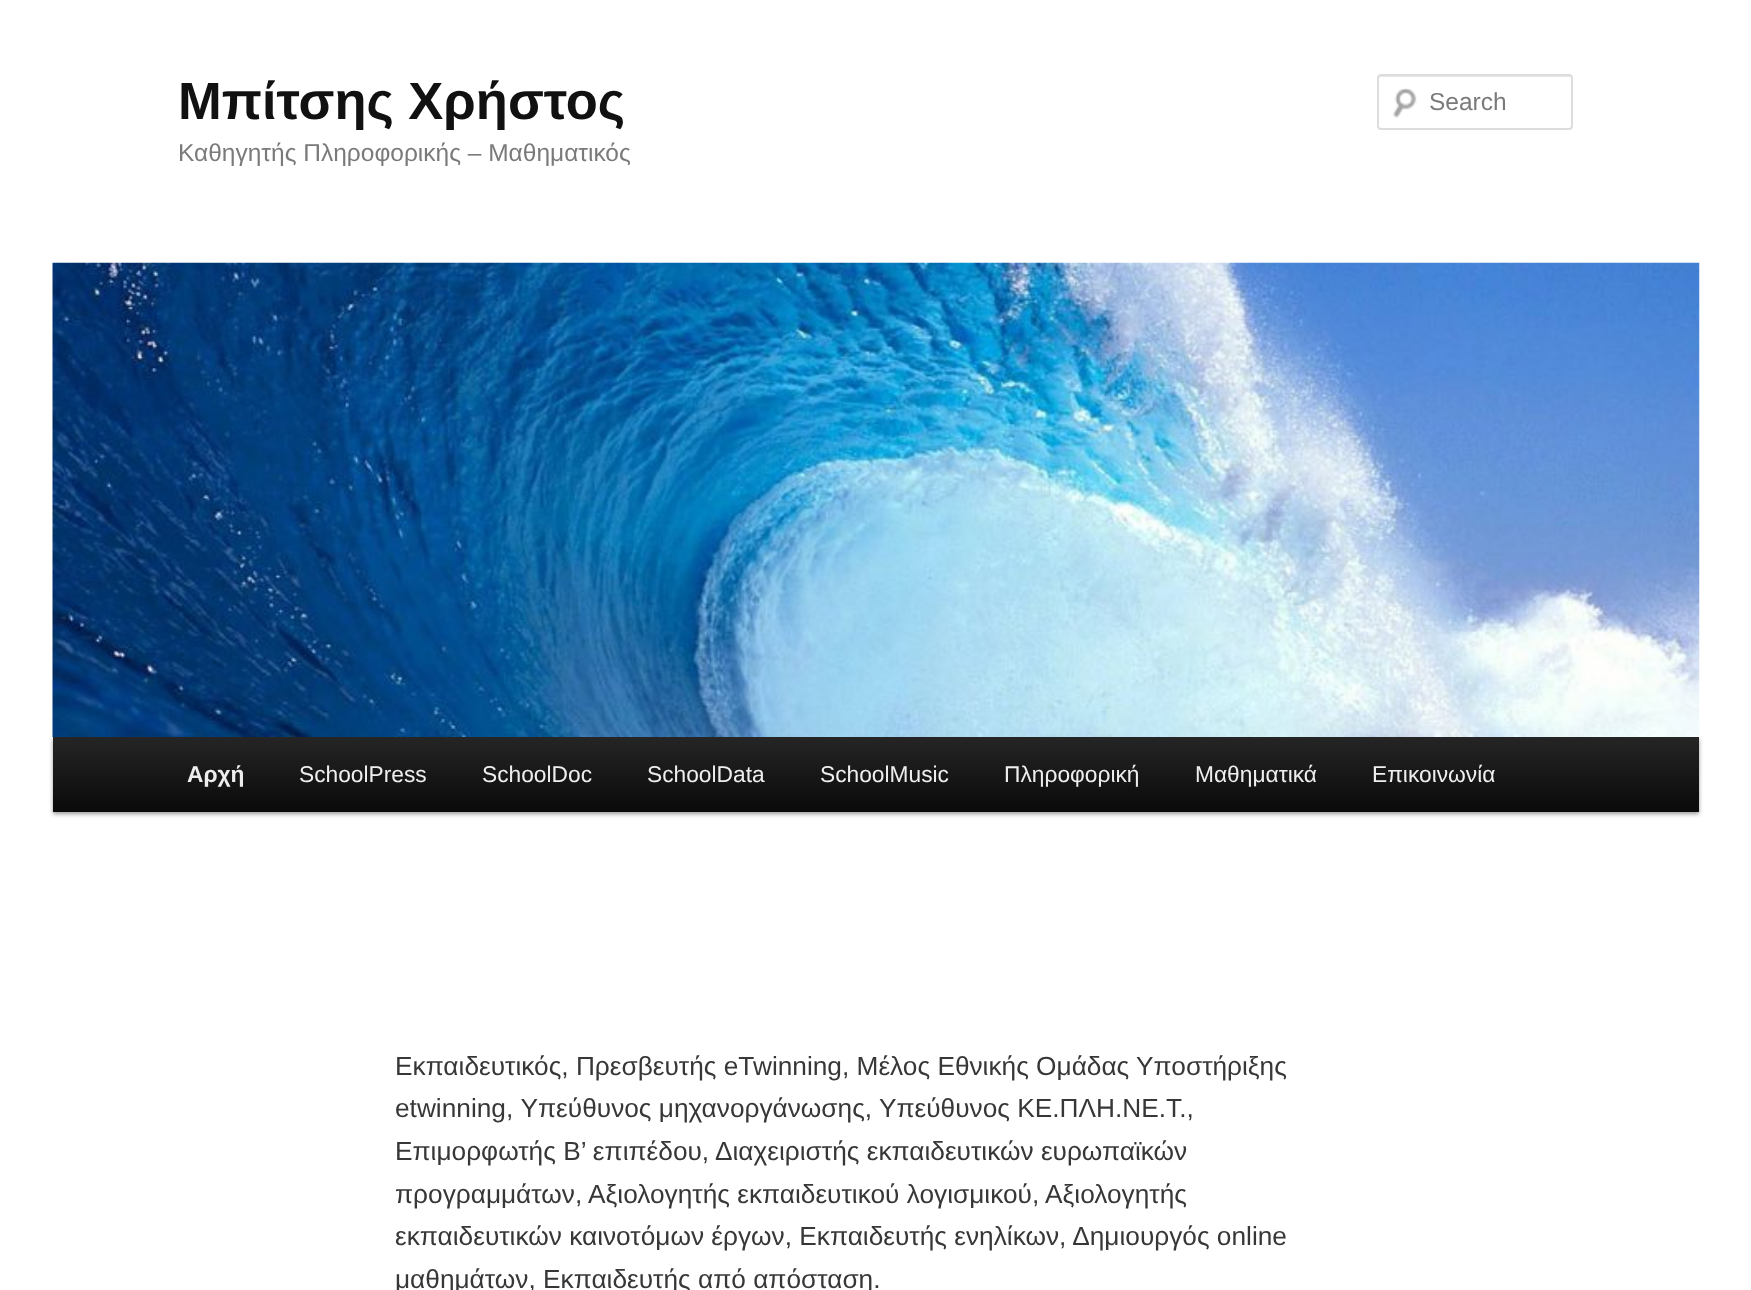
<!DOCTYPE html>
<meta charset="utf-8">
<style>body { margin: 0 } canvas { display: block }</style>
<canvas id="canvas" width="1751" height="1290"></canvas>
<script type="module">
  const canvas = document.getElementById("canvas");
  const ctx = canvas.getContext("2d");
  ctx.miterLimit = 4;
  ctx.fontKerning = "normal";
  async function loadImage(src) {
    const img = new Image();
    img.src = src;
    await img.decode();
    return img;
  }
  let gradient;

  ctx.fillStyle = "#ffffff";
  ctx.fillRect(0, 0, 1751, 1290);
  ctx.font = "bold 52.5px Liberation Sans";
  ctx.fillStyle = "#111111";
  ctx.fillText("Μπίτσης Χρήστος", 178, 119);
  ctx.font = "24.5px Liberation Sans";
  ctx.fillStyle = "#7a7a7a";
  ctx.fillText("Καθηγητής Πληροφορικής – Μαθηματικός", 178, 161);
  ctx.drawImage(await loadImage("img1.png"), 1392, 88, 25, 30);
  ctx.fillStyle = "#e6e6e6";
  ctx.beginPath();
  ctx.moveTo(1381, 77);
  ctx.lineTo(1570, 77);
  ctx.lineTo(1572, 78);
  ctx.lineTo(1572, 79);
  ctx.bezierCurveTo(1572, 77, 1572, 75, 1570, 75);
  ctx.lineTo(1381, 75);
  ctx.bezierCurveTo(1379, 75, 1379, 77, 1379, 79);
  ctx.bezierCurveTo(1379, 78, 1380, 77, 1381, 77);
  ctx.closePath();
  ctx.fill();
  ctx.beginPath();
  ctx.roundRect(1378, 75, 194, 54, 3);
  ctx.strokeStyle = "#dddddd";
  ctx.lineWidth = 2;
  ctx.stroke();
  ctx.fillStyle = "#7a7a7a";
  ctx.fillText("Search", 1429, 110);
  ctx.fillStyle = "rgba(0, 0, 0, 0.4)";
  ctx.filter = "blur(2px)";
  ctx.beginPath();
  ctx.rect(53, 739, 1646, 75);
  ctx.fill();
  ctx.filter = "none";
  ctx.drawImage(await loadImage("img2.png"), 52, 262, 1648, 475);
  gradient = ctx.createLinearGradient(876, 737, 876, 812);
  gradient.addColorStop(0, "#252525");
  gradient.addColorStop(1, "#0a0a0a");
  ctx.fillStyle = gradient;
  ctx.fillRect(53, 737, 1646, 75);
  ctx.font = "bold 22.75px Liberation Sans";
  ctx.fillStyle = "#eeeeee";
  ctx.fillText("Αρχή", 187, 782);
  ctx.font = "22.75px Liberation Sans";
  ctx.fillText("SchoolPress", 299, 782);
  ctx.fillText("SchoolDoc", 482, 782);
  ctx.fillText("SchoolData", 647, 782);
  ctx.fillText("SchoolMusic", 820, 782);
  ctx.fillText("Πληροφορική", 1004, 782);
  ctx.fillText("Μαθηματικά", 1195, 782);
  ctx.fillText("Επικοινωνία", 1372, 782);
  ctx.font = "26.25px Liberation Sans";
  ctx.fillStyle = "#373737";
  ctx.fillText("Εκπαιδευτικός, Πρεσβευτής eTwinning, Μέλος Εθνικής Ομάδας Υποστήριξης", 395, 1075);
  ctx.fillText("etwinning, Υπεύθυνος μηχανοργάνωσης, Υπεύθυνος ΚΕ.ΠΛΗ.ΝΕ.Τ.,", 395, 1117);
  ctx.fillText("Επιμορφωτής Β’ επιπέδου, Διαχειριστής εκπαιδευτικών ευρωπαϊκών", 395, 1160);
  ctx.fillText("προγραμμάτων, Αξιολογητής εκπαιδευτικού λογισμικού, Αξιολογητής", 395, 1203);
  ctx.fillText("εκπαιδευτικών καινοτόμων έργων, Εκπαιδευτής ενηλίκων, Δημιουργός online", 395, 1245);
  ctx.fillText("μαθημάτων, Εκπαιδευτής από απόσταση.", 395, 1288);
</script>
